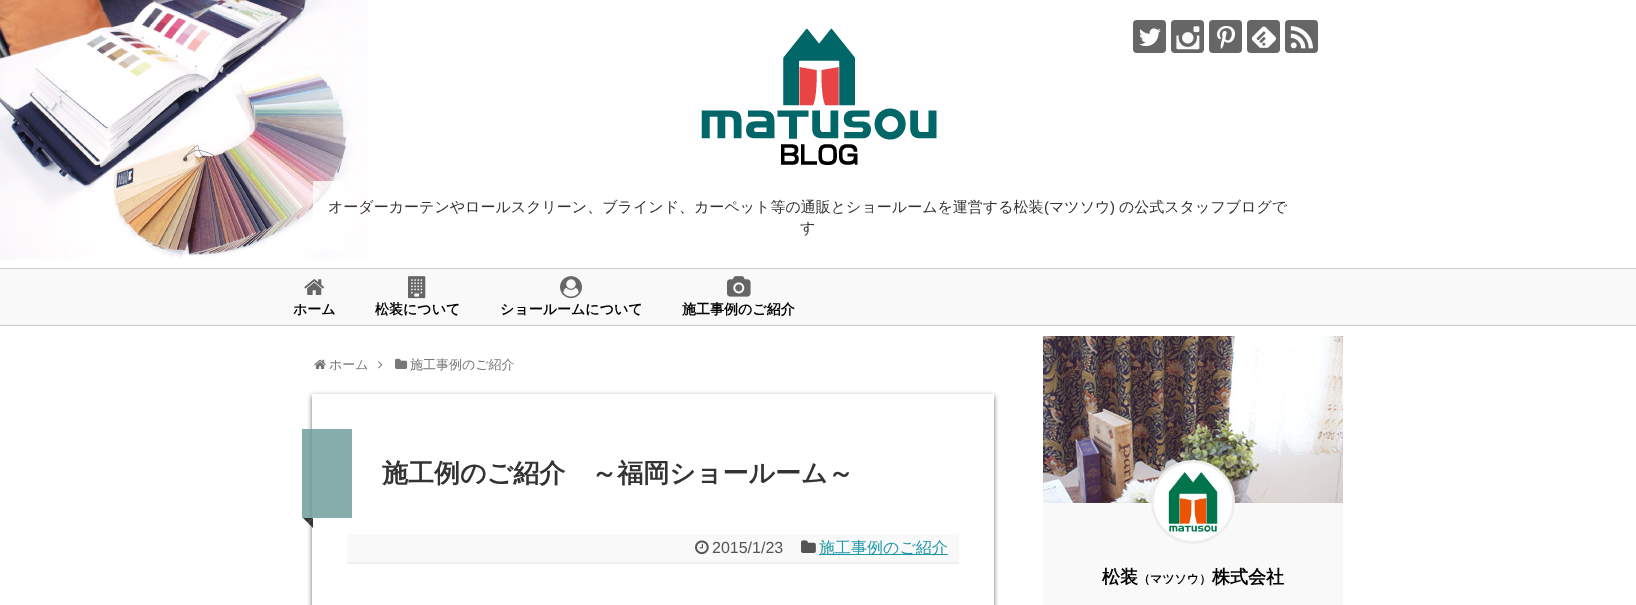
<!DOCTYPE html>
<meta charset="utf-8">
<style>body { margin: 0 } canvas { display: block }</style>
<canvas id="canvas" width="1636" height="605"></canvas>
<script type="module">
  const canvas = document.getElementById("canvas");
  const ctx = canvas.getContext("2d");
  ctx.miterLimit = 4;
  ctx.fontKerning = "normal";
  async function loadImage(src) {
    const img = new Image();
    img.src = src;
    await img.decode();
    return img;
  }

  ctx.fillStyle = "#ffffff";
  ctx.fillRect(0, 0, 1636, 605);
  ctx.drawImage(await loadImage("img1.png"), 0, 0, 368, 260);
  ctx.fillStyle = "#666666";
  ctx.beginPath();
  ctx.roundRect(1133, 20, 33, 33, 4);
  ctx.fill();
  ctx.drawImage(await loadImage("img2.png"), 1139, 28, 22, 19);
  ctx.beginPath();
  ctx.roundRect(1171, 20, 33, 33, 4);
  ctx.fill();
  ctx.drawImage(await loadImage("img3.png"), 1176, 26, 24, 24);
  ctx.beginPath();
  ctx.roundRect(1209, 20, 33, 33, 4);
  ctx.fill();
  ctx.drawImage(await loadImage("img4.png"), 1217, 25, 18, 24);
  ctx.beginPath();
  ctx.roundRect(1247, 20, 33, 33, 4);
  ctx.fill();
  ctx.drawImage(await loadImage("img5.png"), 1251, 26, 25, 22);
  ctx.beginPath();
  ctx.roundRect(1285, 20, 33, 33, 4);
  ctx.fill();
  ctx.drawImage(await loadImage("img6.png"), 1290, 26, 23, 23);
  ctx.drawImage(await loadImage("img7.png"), 701, 28, 236, 137);
  ctx.fillStyle = "rgba(255, 255, 255, 0.8)";
  ctx.fillRect(313, 181, 30, 69);
  ctx.font = "500 15px WenQuanYi Zen Hei";
  ctx.fillStyle = "#333333";
  ctx.fillText("オーダーカーテンやロールスクリーン、ブラインド、カーペット等の通販とショールームを運営する松装", 328, 212);
  ctx.font = "15px Liberation Sans";
  ctx.fillText("(", 1044, 212);
  ctx.font = "500 15px WenQuanYi Zen Hei";
  ctx.fillText("マツソウ", 1049, 212);
  ctx.font = "15px Liberation Sans";
  ctx.fillText(")", 1110, 212);
  ctx.font = "500 15px WenQuanYi Zen Hei";
  ctx.fillText("の公式スタッフブログで", 1119, 212);
  ctx.fillText("す", 800, 233);
  ctx.fillStyle = "#f9f9f9";
  ctx.fillRect(0, 269, 1636, 56);
  ctx.fillStyle = "#cccccc";
  ctx.fillRect(0, 268, 1636, 1);
  ctx.fillRect(0, 325, 1636, 1);
  ctx.drawImage(await loadImage("img8.png"), 304, 279, 21, 16);
  ctx.font = "bold 14px WenQuanYi Zen Hei";
  ctx.fillStyle = "#000000";
  ctx.fillText("ホーム", 293, 314);
  ctx.drawImage(await loadImage("img9.png"), 408, 276, 18, 23);
  ctx.fillText("松装について", 375, 314);
  ctx.drawImage(await loadImage("img10.png"), 560, 276, 22, 23);
  ctx.fillText("ショールームについて", 500, 314);
  ctx.drawImage(await loadImage("img11.png"), 727, 276, 24, 21);
  ctx.fillText("施工事例のご紹介", 682, 314);
  ctx.drawImage(await loadImage("img12.png"), 314, 359, 12, 10);
  ctx.font = "500 13px WenQuanYi Zen Hei";
  ctx.fillStyle = "#777777";
  ctx.fillText("ホーム", 329, 369);
  ctx.drawImage(await loadImage("img13.png"), 378, 361, 5, 8);
  ctx.drawImage(await loadImage("img14.png"), 395, 358, 13, 11);
  ctx.fillText("施工事例のご紹介", 410, 369);
  ctx.save();
  ctx.beginPath();
  ctx.moveTo(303, 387);
  ctx.lineTo(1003, 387);
  ctx.lineTo(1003, 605);
  ctx.lineTo(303, 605);
  ctx.closePath();
  ctx.moveTo(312, 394);
  ctx.lineTo(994, 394);
  ctx.lineTo(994, 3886);
  ctx.lineTo(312, 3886);
  ctx.closePath();
  ctx.clip("evenodd");
  ctx.fillStyle = "#666666";
  ctx.filter = "blur(2.5px)";
  ctx.beginPath();
  ctx.rect(312, 396, 682, 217);
  ctx.fill();
  ctx.filter = "none";
  ctx.restore();
  ctx.fillStyle = "rgba(102, 153, 150, 0.8)";
  ctx.fillRect(302, 429, 50, 89);
  ctx.font = "bold 26px WenQuanYi Zen Hei";
  ctx.fillStyle = "#333333";
  ctx.fillText("施工例のご紹介　～福岡ショールーム～", 382, 482);
  ctx.beginPath();
  ctx.moveTo(303, 518);
  ctx.lineTo(313, 518);
  ctx.lineTo(308, 523);
  ctx.closePath();
  ctx.fill();
  ctx.beginPath();
  ctx.moveTo(313, 518);
  ctx.lineTo(313, 528);
  ctx.lineTo(308, 523);
  ctx.closePath();
  ctx.fill();
  ctx.fillStyle = "#f9f9f9";
  ctx.fillRect(347, 534, 612, 28);
  ctx.fillStyle = "#eeeeee";
  ctx.fillRect(347, 562, 612, 2);
  ctx.drawImage(await loadImage("img15.png"), 695, 540, 14, 15);
  ctx.font = "16px Liberation Sans";
  ctx.fillStyle = "#555555";
  ctx.fillText("2015/1/23", 712, 553);
  ctx.drawImage(await loadImage("img16.png"), 801, 540, 15, 13);
  ctx.fillStyle = "#2098a8";
  ctx.fillRect(819, 554, 129, 1);
  ctx.font = "500 16px WenQuanYi Zen Hei";
  ctx.fillText("施工事例のご紹介", 819, 553);
  ctx.fillStyle = "#f9f9f9";
  ctx.fillRect(1043, 503, 300, 102);
  ctx.drawImage(await loadImage("img17.png"), 1043, 336, 300, 167);
  ctx.fillStyle = "#ffffff";
  ctx.beginPath();
  ctx.arc(1193, 502, 40.5, 0, Math.PI * 2);
  ctx.fill();
  ctx.strokeStyle = "#eeeeee";
  ctx.lineWidth = 3;
  ctx.stroke();
  ctx.drawImage(await loadImage("img18.png"), 1154, 469, 78, 64);
  ctx.font = "bold 18px WenQuanYi Zen Hei";
  ctx.fillStyle = "#000000";
  ctx.fillText("松装", 1102, 583);
  ctx.font = "bold 12px WenQuanYi Zen Hei";
  ctx.fillText("（マツソウ）", 1138, 583);
  ctx.font = "bold 18px WenQuanYi Zen Hei";
  ctx.fillText("株式会社", 1212, 583);
</script>
